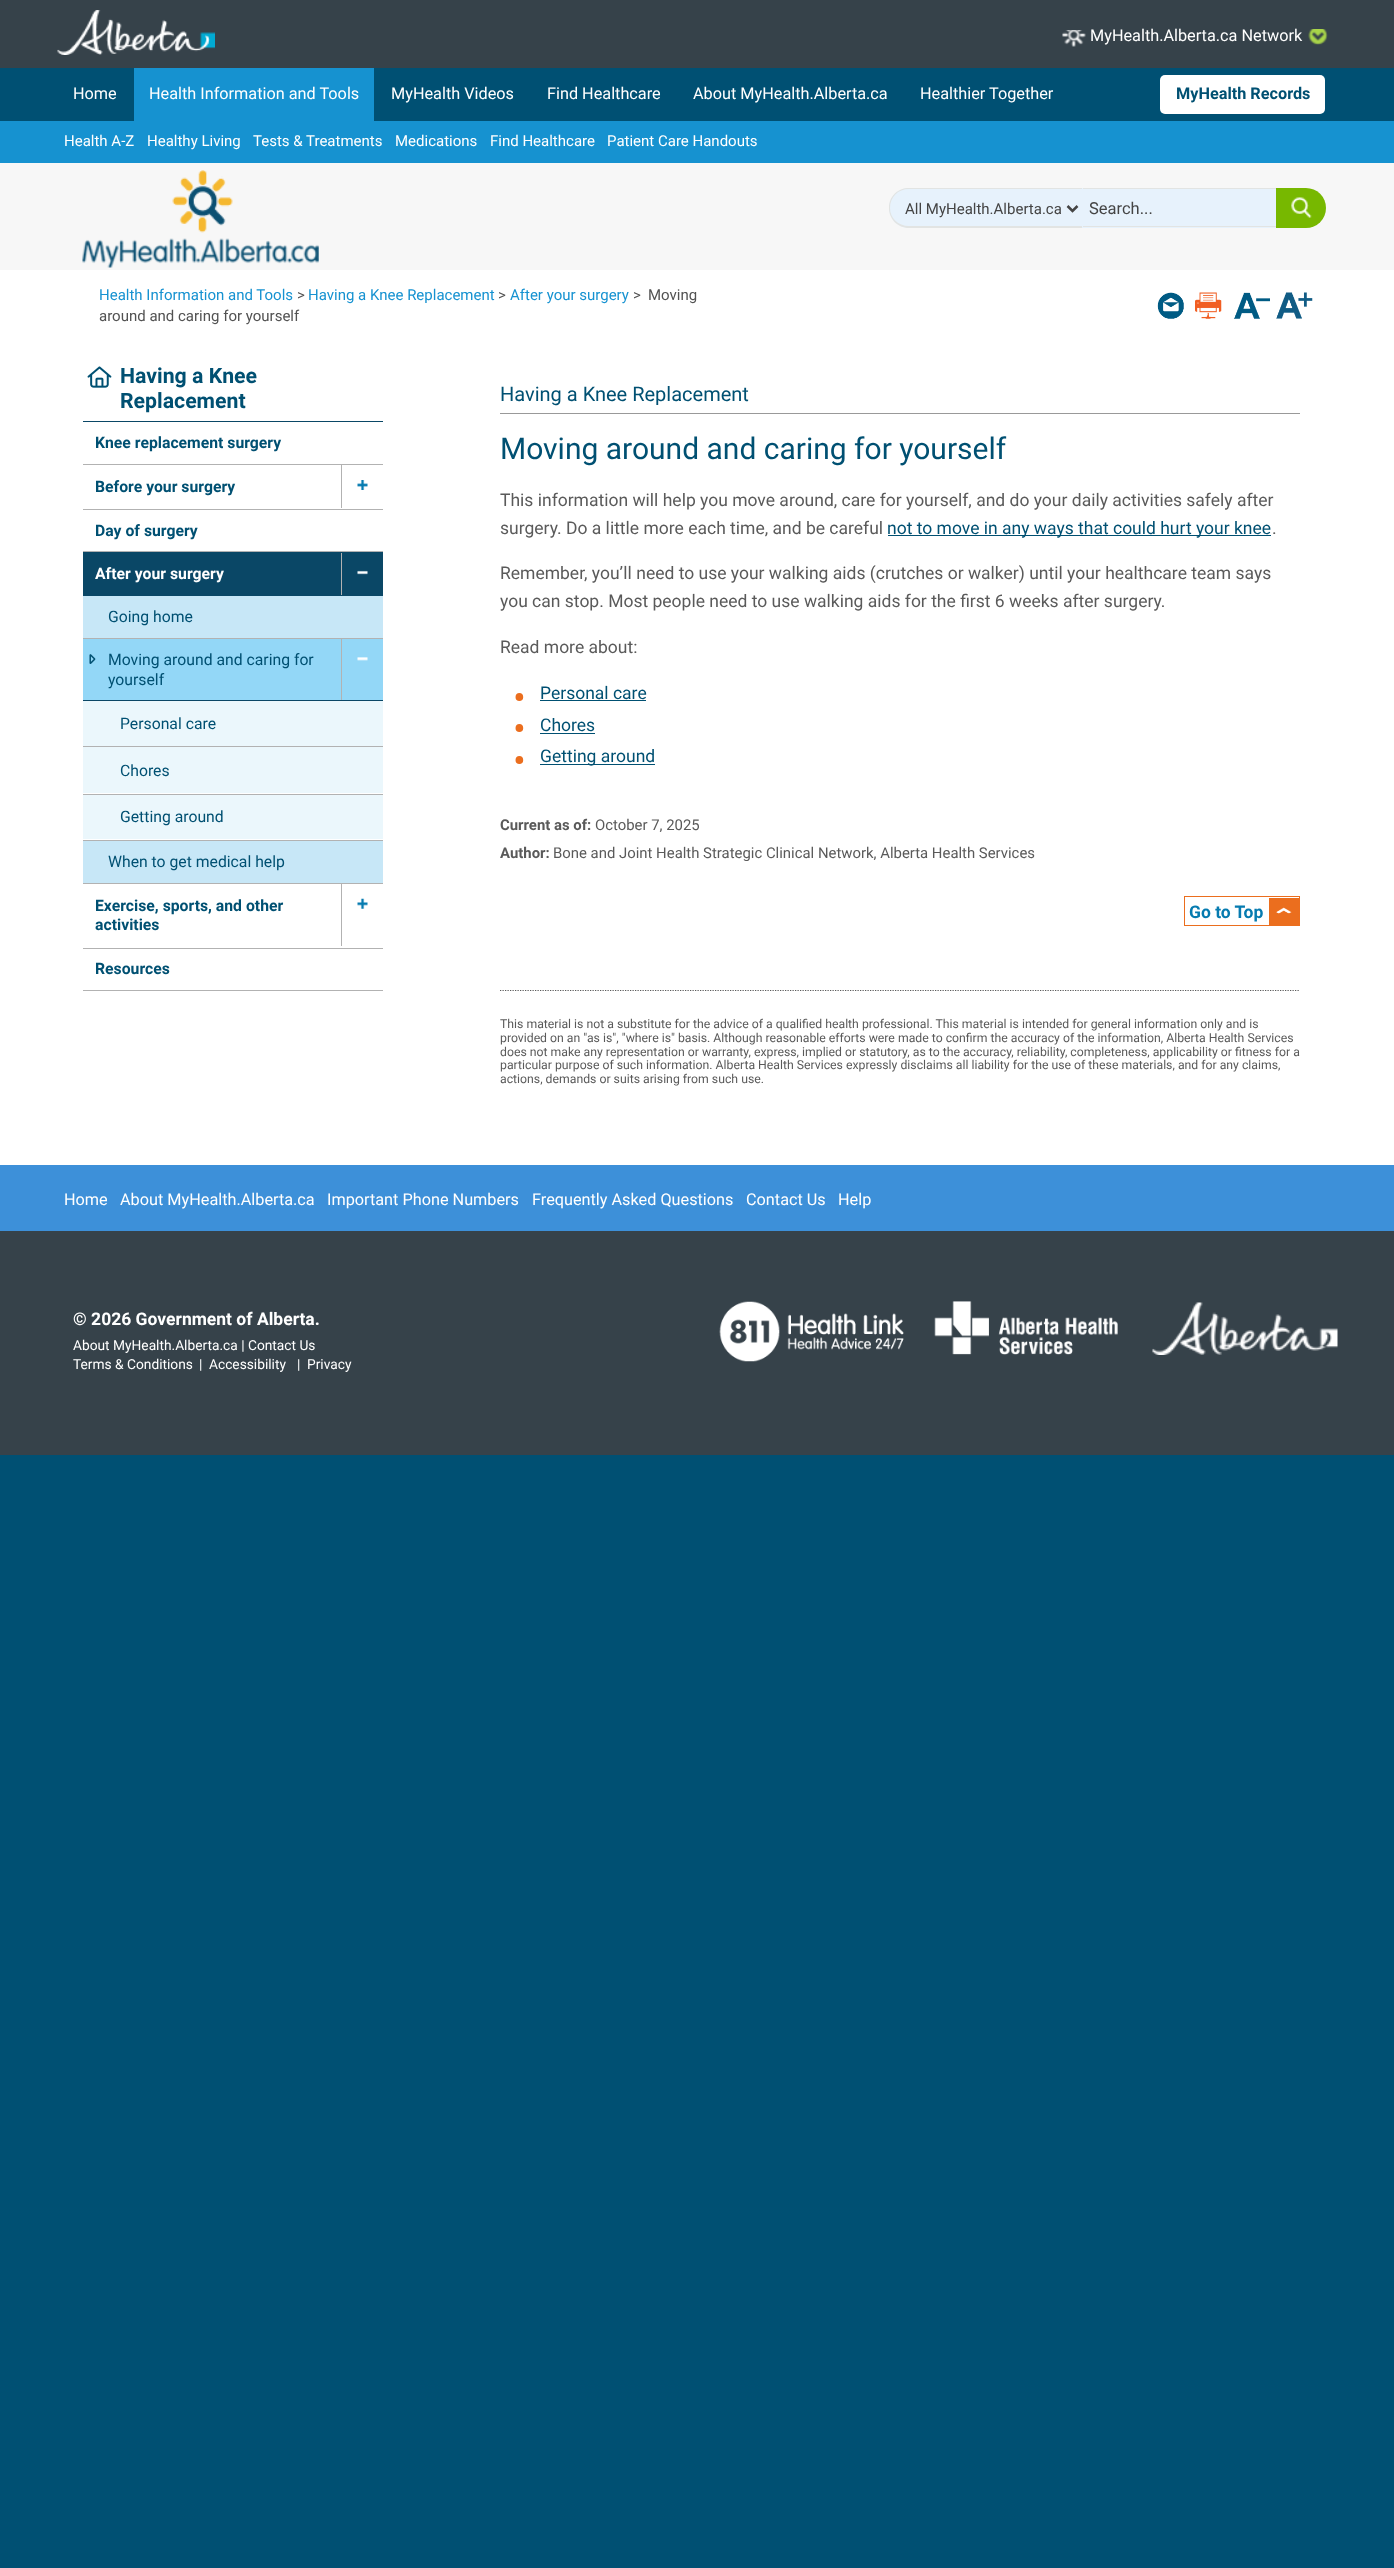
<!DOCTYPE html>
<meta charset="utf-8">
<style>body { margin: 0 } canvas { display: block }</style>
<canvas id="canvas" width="1394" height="2568"></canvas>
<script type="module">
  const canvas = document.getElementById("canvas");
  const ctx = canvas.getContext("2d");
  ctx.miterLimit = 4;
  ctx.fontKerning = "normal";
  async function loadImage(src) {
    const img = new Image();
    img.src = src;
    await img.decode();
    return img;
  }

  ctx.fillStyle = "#005073";
  ctx.fillRect(0, 0, 1394, 2568);
  ctx.fillStyle = "#36424a";
  ctx.fillRect(0, 0, 1394, 68);
  ctx.drawImage(await loadImage("img1.png"), 57, 10, 158, 45);
  ctx.drawImage(await loadImage("img2.png"), 1062, 30, 24, 17);
  ctx.font = "16.25px Roboto";
  ctx.fillStyle = "#ffffff";
  ctx.fillText("MyHealth.Alberta.ca Network", 1090, 41);
  ctx.drawImage(await loadImage("img3.png"), 1308, 29, 20, 16);
  ctx.fillText("Home", 73, 99);
  ctx.fillStyle = "#1692d0";
  ctx.fillRect(134, 68, 240, 53);
  ctx.fillStyle = "#ffffff";
  ctx.fillText("Health Information and Tools", 149, 99);
  ctx.fillText("MyHealth Videos", 391, 99);
  ctx.fillText("Find Healthcare", 547, 99);
  ctx.fillText("About MyHealth.Alberta.ca", 693, 99);
  ctx.fillText("Healthier Together", 920, 99);
  ctx.beginPath();
  ctx.roundRect(1160, 75, 165, 39, 5);
  ctx.fill();
  ctx.font = "bold 16.25px Roboto";
  ctx.fillStyle = "#005072";
  ctx.fillText("MyHealth Records", 1176, 99);
  ctx.fillStyle = "#1692d0";
  ctx.fillRect(0, 121, 1394, 42);
  ctx.font = "15px Roboto";
  ctx.fillStyle = "#ffffff";
  ctx.fillText("Health A-Z", 64, 146);
  ctx.fillText("Healthy Living", 147, 146);
  ctx.fillText("Tests & Treatments", 253, 146);
  ctx.fillText("Medications", 395, 146);
  ctx.fillText("Find Healthcare", 490, 146);
  ctx.fillText("Patient Care Handouts", 607, 146);
  ctx.fillStyle = "#f7f7f7";
  ctx.fillRect(0, 163, 1394, 107);
  ctx.drawImage(await loadImage("img4.png"), 82, 170, 237, 98);
  ctx.fillStyle = "#e7f2fc";
  ctx.beginPath();
  ctx.roundRect(889, 188, 194, 40, [20, 0, 0, 20]);
  ctx.fill();
  ctx.fillStyle = "#e2e4e3";
  ctx.beginPath();
  ctx.moveTo(909, 188);
  ctx.lineTo(1082, 188);
  ctx.lineTo(1082, 228);
  ctx.lineTo(909, 228);
  ctx.bezierCurveTo(898, 228, 889, 219, 889, 208);
  ctx.bezierCurveTo(889, 196, 898, 188, 909, 188);
  ctx.closePath();
  ctx.moveTo(909, 189);
  ctx.lineTo(1082, 189);
  ctx.lineTo(1082, 226);
  ctx.lineTo(909, 226);
  ctx.bezierCurveTo(898, 226, 890, 218, 890, 208);
  ctx.bezierCurveTo(890, 197, 898, 189, 909, 189);
  ctx.closePath();
  ctx.fill("evenodd");
  ctx.beginPath();
  ctx.moveTo(1067.5, 206);
  ctx.lineTo(1072.5, 211);
  ctx.lineTo(1077.5, 206);
  ctx.strokeStyle = "#444444";
  ctx.lineWidth = 2.5;
  ctx.stroke();
  ctx.fillStyle = "#444444";
  ctx.fillText("All MyHealth.Alberta.ca", 905, 214);
  ctx.fillStyle = "#e7f2fc";
  ctx.fillRect(1083, 189, 193, 39);
  ctx.fillStyle = "#e2e4e3";
  ctx.fillRect(1083, 188, 193, 1);
  ctx.fillRect(1083, 226, 193, 1);
  ctx.font = "16.5px Roboto";
  ctx.fillStyle = "#444444";
  ctx.fillText("Search...", 1089, 214);
  ctx.fillStyle = "#77b800";
  ctx.beginPath();
  ctx.roundRect(1276, 188, 50, 40, [0, 20, 20, 0]);
  ctx.fill();
  ctx.drawImage(await loadImage("img5.png"), 1291, 197, 21, 21);
  ctx.fillStyle = "#ffffff";
  ctx.fillRect(0, 270, 1394, 895);
  ctx.font = "15px Roboto";
  ctx.fillStyle = "#1692d1";
  ctx.fillText("Health Information and Tools", 99, 300);
  ctx.fillStyle = "#525252";
  ctx.fillText(">", 297, 300);
  ctx.fillStyle = "#1692d1";
  ctx.fillText("Having a Knee Replacement", 308, 300);
  ctx.fillStyle = "#525252";
  ctx.fillText(">", 498, 300);
  ctx.fillStyle = "#1692d1";
  ctx.fillText("After your surgery", 510, 300);
  ctx.fillStyle = "#525252";
  ctx.fillText(">", 633, 300);
  ctx.fillText("Moving", 648, 300);
  ctx.fillText("around and caring for yourself", 99, 321);
  ctx.drawImage(await loadImage("img6.png"), 1157, 292, 27, 27);
  ctx.drawImage(await loadImage("img7.png"), 1195, 292, 27, 27);
  ctx.drawImage(await loadImage("img8.png"), 1233, 292, 37, 27);
  ctx.drawImage(await loadImage("img9.png"), 1276, 292, 37, 27);
  ctx.drawImage(await loadImage("img10.png"), 87, 366, 25, 22);
  ctx.font = "bold 21.25px Roboto";
  ctx.fillStyle = "#005072";
  ctx.fillText("Having a Knee", 120, 383);
  ctx.fillText("Replacement", 120, 408);
  ctx.fillStyle = "#0a4766";
  ctx.fillRect(83, 421, 300, 1);
  ctx.font = "bold 15.75px Roboto";
  ctx.fillStyle = "#005072";
  ctx.fillText("Knee replacement surgery", 95, 448);
  ctx.fillStyle = "#b2b2b2";
  ctx.fillRect(83, 464, 300, 1);
  ctx.fillRect(341, 465, 1, 43);
  ctx.fillStyle = "#005072";
  ctx.fillText("Before your surgery", 95, 492);
  ctx.drawImage(await loadImage("img11.png"), 357, 480, 11, 10);
  ctx.fillStyle = "#b2b2b2";
  ctx.fillRect(83, 509, 300, 1);
  ctx.fillStyle = "#005072";
  ctx.fillText("Day of surgery", 95, 536);
  ctx.fillStyle = "#0a4766";
  ctx.fillRect(83, 552, 300, 44);
  ctx.fillStyle = "#b2b2b2";
  ctx.fillRect(83, 551, 300, 1);
  ctx.fillRect(341, 553, 1, 42);
  ctx.fillStyle = "#ffffff";
  ctx.fillText("After your surgery", 95, 579);
  ctx.drawImage(await loadImage("img12.png"), 357, 570, 11, 5);
  ctx.fillStyle = "#c7e7f7";
  ctx.fillRect(83, 596, 300, 42);
  ctx.font = "15.75px Roboto";
  ctx.fillStyle = "#005072";
  ctx.fillText("Going home", 108, 622);
  ctx.fillStyle = "#93d7f7";
  ctx.fillRect(83, 639, 300, 61);
  ctx.fillStyle = "#b2b2b2";
  ctx.fillRect(83, 638, 300, 1);
  ctx.fillRect(341, 639, 1, 62);
  ctx.drawImage(await loadImage("img13.png"), 89, 654, 7, 10);
  ctx.fillStyle = "#005072";
  ctx.fillText("Moving around and caring for", 108, 665);
  ctx.fillText("yourself", 108, 685);
  ctx.drawImage(await loadImage("img14.png"), 357, 657, 11, 4);
  ctx.fillStyle = "#ebf7fc";
  ctx.fillRect(83, 701, 300, 45);
  ctx.fillStyle = "#0a4766";
  ctx.fillRect(83, 700, 300, 1);
  ctx.fillStyle = "#005072";
  ctx.fillText("Personal care", 120, 729);
  ctx.fillStyle = "#ebf7fc";
  ctx.fillRect(83, 747, 300, 46);
  ctx.fillStyle = "#b2b2b2";
  ctx.fillRect(83, 746, 300, 1);
  ctx.fillStyle = "#005072";
  ctx.fillText("Chores", 120, 776);
  ctx.fillStyle = "#ebf7fc";
  ctx.fillRect(83, 795, 300, 44);
  ctx.fillStyle = "#b2b2b2";
  ctx.fillRect(83, 794, 300, 1);
  ctx.fillStyle = "#005072";
  ctx.fillText("Getting around", 120, 822);
  ctx.fillStyle = "#c7e7f7";
  ctx.fillRect(83, 841, 300, 42);
  ctx.fillStyle = "#b2b2b2";
  ctx.fillRect(83, 840, 300, 1);
  ctx.fillStyle = "#005072";
  ctx.fillText("When to get medical help", 108, 867);
  ctx.fillStyle = "#b2b2b2";
  ctx.fillRect(83, 883, 300, 1);
  ctx.fillRect(341, 884, 1, 62);
  ctx.font = "bold 15.75px Roboto";
  ctx.fillStyle = "#005072";
  ctx.fillText("Exercise, sports, and other", 95, 911);
  ctx.fillText("activities", 95, 930);
  ctx.drawImage(await loadImage("img15.png"), 357, 898, 11, 11);
  ctx.fillStyle = "#b2b2b2";
  ctx.fillRect(83, 948, 300, 1);
  ctx.fillRect(83, 990, 300, 1);
  ctx.fillStyle = "#005072";
  ctx.fillText("Resources", 95, 974);
  ctx.fillStyle = "#999999";
  ctx.fillRect(500, 413, 800, 1);
  ctx.font = "20px Roboto";
  ctx.fillStyle = "#005072";
  ctx.fillText("Having a Knee Replacement", 500, 401);
  ctx.font = "30px Roboto";
  ctx.fillText("Moving around and caring for yourself", 500, 459);
  ctx.font = "17.5px Roboto";
  ctx.fillStyle = "#5a5a5a";
  ctx.fillText("This information will help you move around, care for yourself, and do your daily activities safely after", 500, 506);
  ctx.fillText("surgery. Do a little more each time, and be careful", 500, 534);
  ctx.fillStyle = "#005072";
  ctx.fillRect(888, 535, 383, 1);
  ctx.fillText("not to move in any ways that could hurt your knee", 887, 534);
  ctx.fillStyle = "#5a5a5a";
  ctx.fillText(".", 1272, 534);
  ctx.fillText("Remember, you’ll need to use your walking aids (crutches or walker) until your healthcare team says", 500, 579);
  ctx.fillText("you can stop. Most people need to use walking aids for the first 6 weeks after surgery.", 500, 607);
  ctx.fillText("Read more about:", 500, 653);
  ctx.font = "38px Roboto";
  ctx.fillStyle = "#eb6e1e";
  ctx.fillText("•", 513, 711);
  ctx.font = "17.5px Roboto";
  ctx.fillStyle = "#005072";
  ctx.fillText("Personal care", 540, 699);
  ctx.fillRect(540, 700, 106, 1);
  ctx.font = "38px Roboto";
  ctx.fillStyle = "#eb6e1e";
  ctx.fillText("•", 513, 742);
  ctx.font = "17.5px Roboto";
  ctx.fillStyle = "#005072";
  ctx.fillText("Chores", 540, 731);
  ctx.fillRect(540, 733, 55, 1);
  ctx.font = "38px Roboto";
  ctx.fillStyle = "#eb6e1e";
  ctx.fillText("•", 513, 774);
  ctx.fillStyle = "#005072";
  ctx.fillRect(540, 764, 115, 1);
  ctx.font = "17.5px Roboto";
  ctx.fillText("Getting around", 540, 762);
  ctx.font = "bold 14.9px Roboto";
  ctx.fillStyle = "#5a5a5a";
  ctx.fillText("Current as of:", 500, 830);
  ctx.font = "14.9px Roboto";
  ctx.fillText("October 7, 2025", 595, 830);
  ctx.font = "bold 14.9px Roboto";
  ctx.fillText("Author:", 500, 858);
  ctx.font = "14.9px Roboto";
  ctx.fillText("Bone and Joint Health Strategic Clinical Network, Alberta Health Services", 553, 858);
  ctx.strokeStyle = "#eb6e1e";
  ctx.lineWidth = 1;
  ctx.strokeRect(1184.5, 896.5, 115, 29);
  ctx.font = "bold 17.5px Roboto";
  ctx.fillStyle = "#067bb0";
  ctx.fillText("Go to Top", 1189, 918);
  ctx.fillStyle = "#eb6e1e";
  ctx.fillRect(1269, 898, 30, 27);
  ctx.drawImage(await loadImage("img16.png"), 1276, 907, 16, 7);
  ctx.beginPath();
  ctx.moveTo(500, 990.5);
  ctx.lineTo(1300, 990.5);
  ctx.strokeStyle = "#5a5a5a";
  ctx.lineWidth = 1.2;
  ctx.setLineDash([1.25, 1.25]);
  ctx.stroke();
  ctx.font = "12.25px Roboto";
  ctx.fillStyle = "#5a5a5a";
  ctx.fillText("This material is not a substitute for the advice of a qualified health professional. This material is intended for general information only and is", 500, 1028);
  ctx.fillText("provided on an \"as is\", \"where is\" basis. Although reasonable efforts were made to confirm the accuracy of the information, Alberta Health Services", 500, 1042);
  ctx.fillText("does not make any representation or warranty, express, implied or statutory, as to the accuracy, reliability, completeness, applicability or fitness for a", 500, 1056);
  ctx.fillText("particular purpose of such information. Alberta Health Services expressly disclaims all liability for the use of these materials, and for any claims,", 500, 1069);
  ctx.fillText("actions, demands or suits arising from such use.", 500, 1083);
  ctx.fillStyle = "#36424a";
  ctx.fillRect(0, 1231, 1394, 224);
  ctx.fillStyle = "#3d90d9";
  ctx.fillRect(0, 1165, 1394, 66);
  ctx.font = "16.25px Roboto";
  ctx.fillStyle = "#ffffff";
  ctx.fillText("Home", 64, 1205);
  ctx.fillText("About MyHealth.Alberta.ca", 120, 1205);
  ctx.fillText("Important Phone Numbers", 327, 1205);
  ctx.fillText("Frequently Asked Questions", 532, 1205);
  ctx.fillText("Contact Us", 746, 1205);
  ctx.fillText("Help", 838, 1205);
  ctx.font = "bold 17.5px Roboto";
  ctx.fillText("© 2026 Government of Alberta.", 73, 1325);
  ctx.font = "13.75px Roboto";
  ctx.fillText("About MyHealth.Alberta.ca | Contact Us", 73, 1350);
  ctx.fillText("Terms & Conditions", 73, 1369);
  ctx.fillText("|", 199, 1369);
  ctx.fillText("Accessibility", 209, 1369);
  ctx.fillText("|", 297, 1369);
  ctx.fillText("Privacy", 307, 1369);
  ctx.drawImage(await loadImage("img17.png"), 719, 1301, 185, 61);
  ctx.drawImage(await loadImage("img18.png"), 934, 1301, 184, 54);
  ctx.drawImage(await loadImage("img19.png"), 1152, 1302, 186, 53);
</script>
